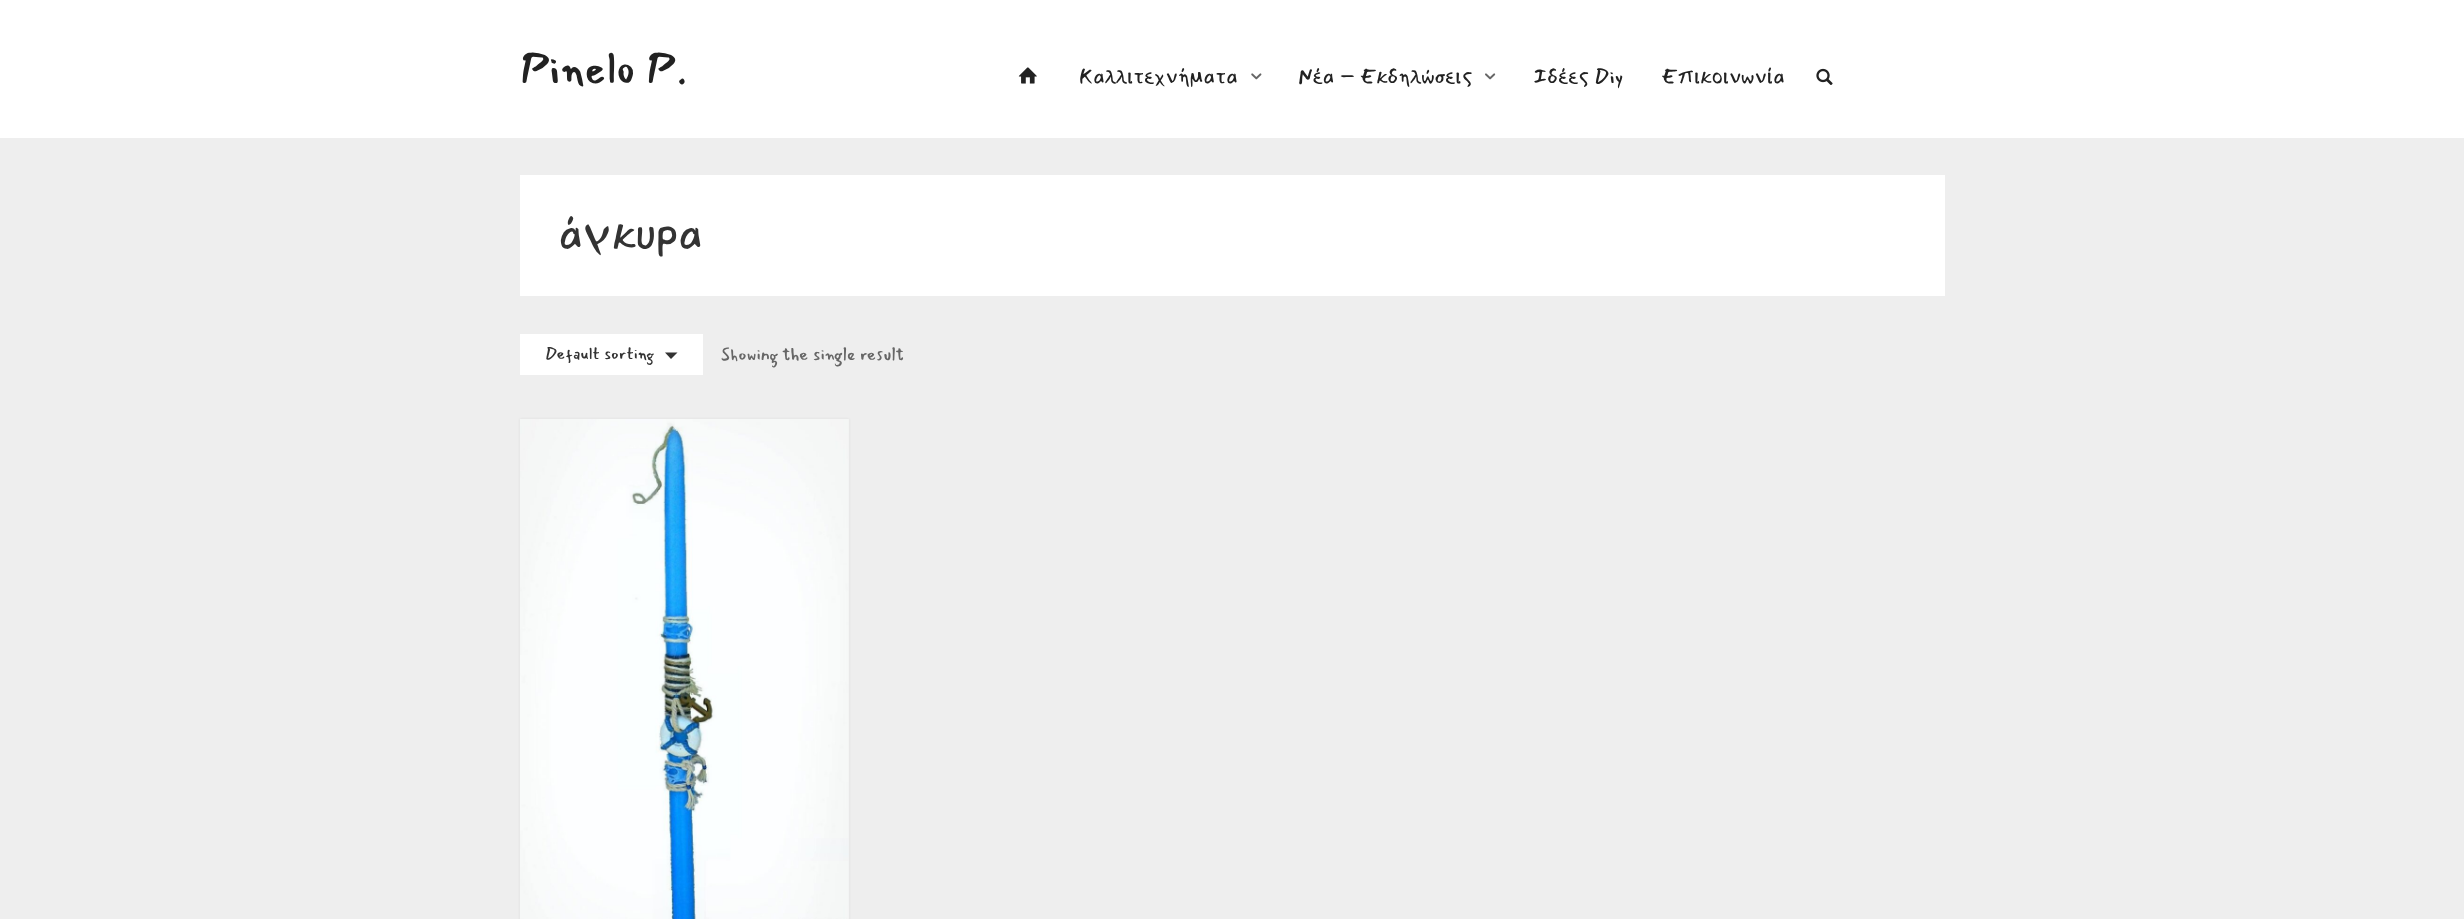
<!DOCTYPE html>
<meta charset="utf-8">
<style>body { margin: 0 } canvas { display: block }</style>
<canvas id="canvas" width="2464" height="919"></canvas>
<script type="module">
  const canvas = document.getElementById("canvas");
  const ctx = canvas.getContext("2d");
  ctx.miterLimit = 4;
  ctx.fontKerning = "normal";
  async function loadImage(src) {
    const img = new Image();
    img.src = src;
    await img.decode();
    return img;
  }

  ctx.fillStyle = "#eeeeee";
  ctx.fillRect(0, 0, 2464, 919);
  ctx.fillStyle = "#ffffff";
  ctx.fillRect(0, 0, 2464, 138);
  ctx.font = "44px Mansalva";
  ctx.fillStyle = "#222222";
  ctx.fillText("Pinelo P.", 520, 83);
  ctx.drawImage(await loadImage("img1.png"), 1018, 67, 19, 17);
  ctx.font = "20px Mansalva";
  ctx.fillText("Καλλιτεχνήματα", 1079, 83);
  ctx.drawImage(await loadImage("img2.png"), 1251, 73, 11, 7);
  ctx.fillText("Νέα – Εκδηλώσεις", 1298, 83);
  ctx.drawImage(await loadImage("img3.png"), 1485, 73, 11, 7);
  ctx.fillText("Ιδέες Diy", 1533, 83);
  ctx.fillText("Επικοινωνία", 1661, 83);
  ctx.drawImage(await loadImage("img4.png"), 1816, 68, 17, 17);
  ctx.fillStyle = "#ffffff";
  ctx.fillRect(520, 175, 1425, 121);
  ctx.font = "42.5px Mansalva";
  ctx.fillStyle = "#333333";
  ctx.fillText("άγκυρα", 558, 248);
  ctx.fillStyle = "#ffffff";
  ctx.fillRect(520, 334, 183, 41);
  ctx.font = "16.25px Mansalva";
  ctx.fillStyle = "#333333";
  ctx.fillText("Default sorting", 545, 359);
  ctx.beginPath();
  ctx.moveTo(665, 352.5);
  ctx.lineTo(677.5, 352.5);
  ctx.lineTo(671, 359);
  ctx.closePath();
  ctx.fill();
  ctx.font = "17.5px Mansalva";
  ctx.fillStyle = "#666666";
  ctx.fillText("Showing the single result", 721, 360);
  ctx.fillStyle = "rgba(204, 204, 204, 0.5)";
  ctx.filter = "blur(1px)";
  ctx.beginPath();
  ctx.rect(520, 419, 329, 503);
  ctx.fill();
  ctx.filter = "none";
  ctx.fillStyle = "#f0f0f0";
  ctx.fillRect(848, 419, 1, 500);
  ctx.drawImage(await loadImage("img5.png"), 520, 419, 329, 500);
</script>
